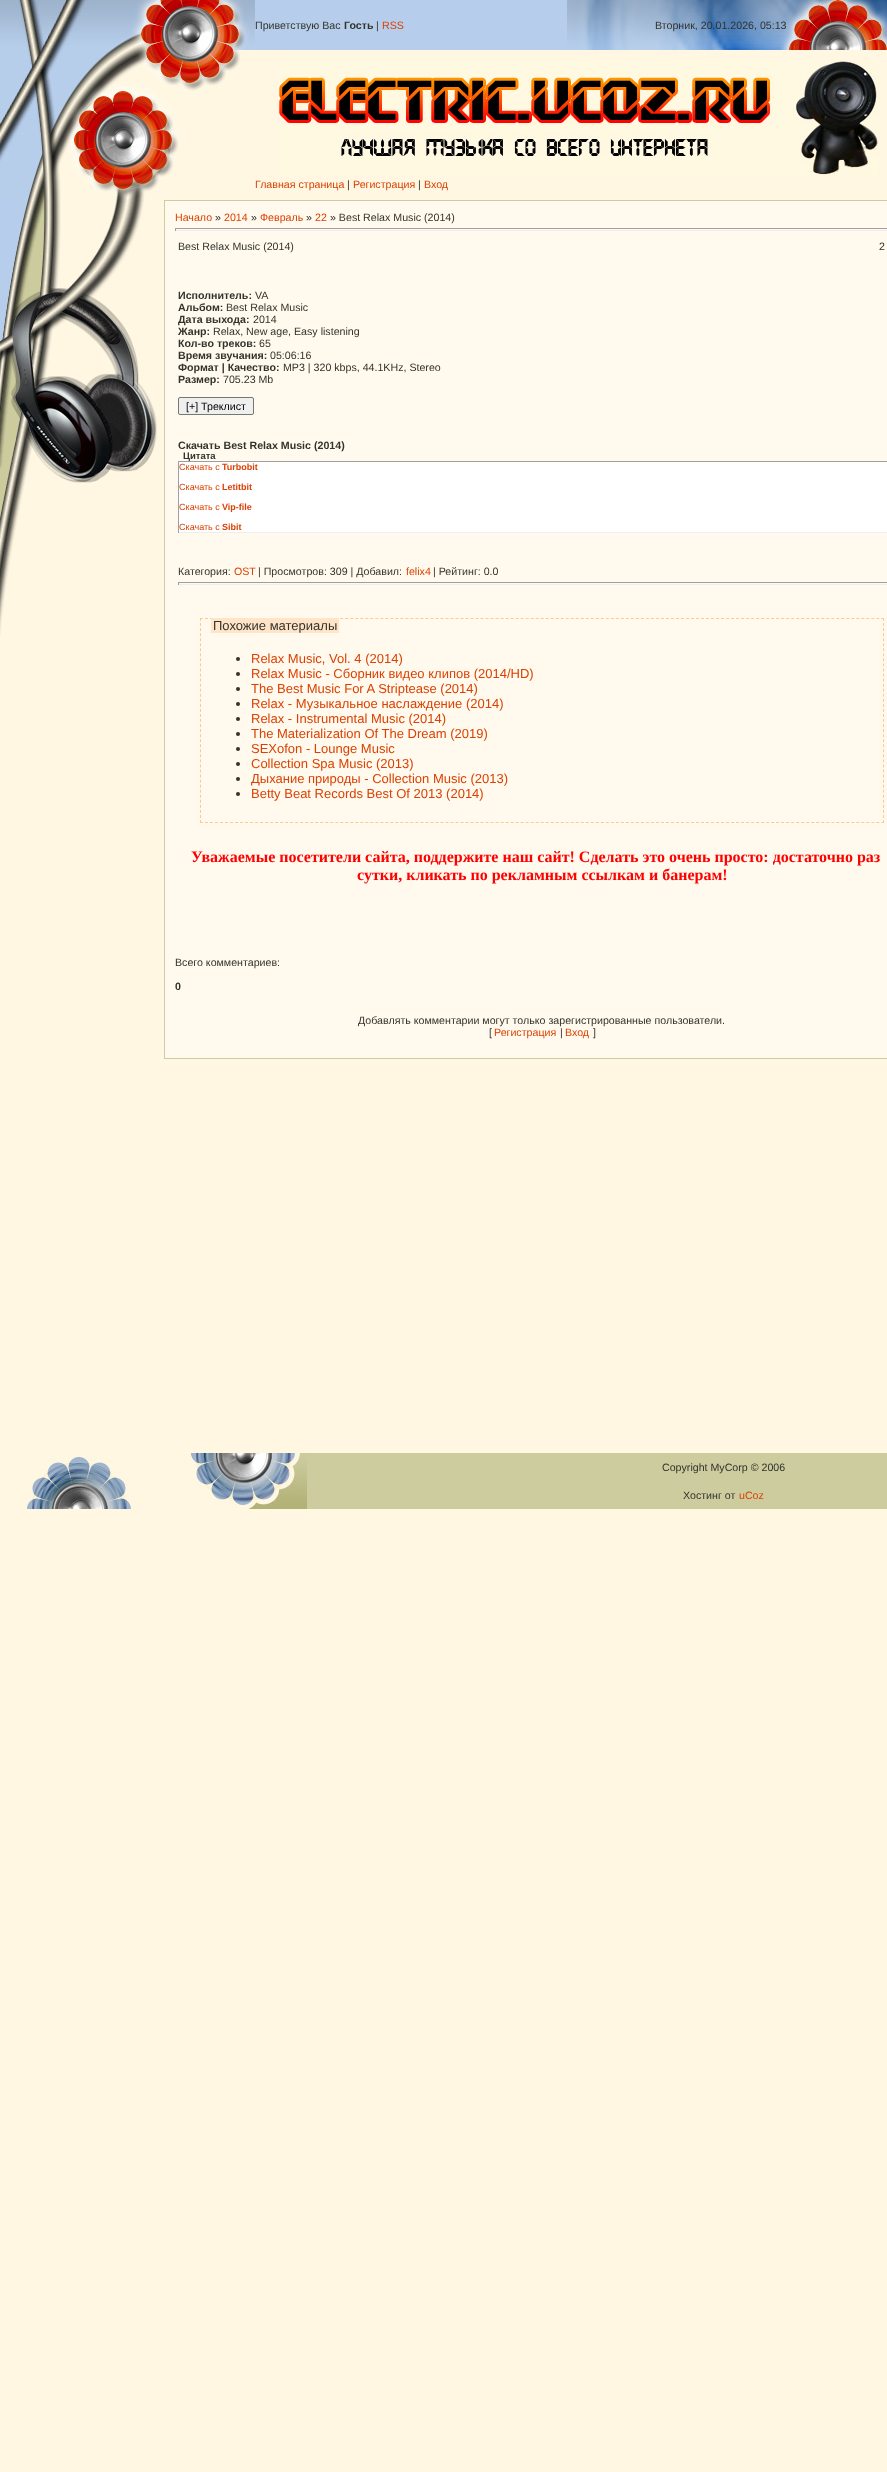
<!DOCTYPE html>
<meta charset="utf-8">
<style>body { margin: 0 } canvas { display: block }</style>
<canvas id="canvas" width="887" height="2472"></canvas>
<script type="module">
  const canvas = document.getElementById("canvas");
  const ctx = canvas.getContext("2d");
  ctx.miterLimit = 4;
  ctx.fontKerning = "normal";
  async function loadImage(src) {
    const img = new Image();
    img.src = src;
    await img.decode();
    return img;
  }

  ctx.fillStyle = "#fff7e2";
  ctx.fillRect(0, 0, 887, 2472);
  ctx.fillStyle = "#b6ceeb";
  ctx.fillRect(255, 0, 312, 50);
  ctx.drawImage(await loadImage("img1.png"), 0, 0, 255, 50);
  ctx.font = "10.65px Liberation Sans";
  ctx.fillStyle = "#33332d";
  ctx.fillText("Приветствую Вас", 255, 29);
  ctx.font = "bold 10.65px Liberation Sans";
  ctx.fillText("Гость", 344, 29);
  ctx.font = "10.65px Liberation Sans";
  ctx.fillText("|", 376, 29);
  ctx.fillStyle = "#db4104";
  ctx.fillText("RSS", 382, 29);
  ctx.drawImage(await loadImage("img2.png"), 567, 0, 320, 50);
  ctx.fillStyle = "#33332d";
  ctx.fillText("Вторник, 20.01.2026, 05:13", 655, 29);
  ctx.drawImage(await loadImage("img3.png"), 0, 50, 240, 150);
  ctx.drawImage(await loadImage("img4.png"), 279, 61, 599, 114);
  ctx.fillStyle = "#db4104";
  ctx.fillText("Главная страница", 255, 188);
  ctx.fillStyle = "#33332d";
  ctx.fillText("|", 347, 188);
  ctx.fillStyle = "#db4104";
  ctx.fillText("Регистрация", 353, 188);
  ctx.fillStyle = "#33332d";
  ctx.fillText("|", 418, 188);
  ctx.fillStyle = "#db4104";
  ctx.fillText("Вход", 424, 188);
  ctx.drawImage(await loadImage("img5.png"), 24, 1456, 110, 53);
  ctx.drawImage(await loadImage("img6.png"), 0, 200, 157, 435);
  ctx.strokeStyle = "#cccc9e";
  ctx.strokeRect(164.5, 200.5, 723, 858);
  ctx.fillStyle = "#fffaed";
  ctx.fillRect(165, 201, 722, 857);
  ctx.fillStyle = "#db4104";
  ctx.fillText("Начало", 175, 221);
  ctx.fillStyle = "#33332d";
  ctx.fillText("»", 215, 221);
  ctx.fillStyle = "#db4104";
  ctx.fillText("2014", 224, 221);
  ctx.fillStyle = "#33332d";
  ctx.fillText("»", 251, 221);
  ctx.fillStyle = "#db4104";
  ctx.fillText("Февраль", 260, 221);
  ctx.fillStyle = "#33332d";
  ctx.fillText("»", 306, 221);
  ctx.fillStyle = "#db4104";
  ctx.fillText("22", 315, 221);
  ctx.fillStyle = "#33332d";
  ctx.fillText("» Best Relax Music (2014)", 330, 221);
  ctx.fillStyle = "#9f9f9f";
  ctx.fillRect(175, 228, 712, 1);
  ctx.fillStyle = "#eeeeee";
  ctx.fillRect(175, 230, 712, 1);
  ctx.fillStyle = "#9f9f9f";
  ctx.fillRect(175, 228, 1, 3);
  ctx.fillStyle = "#33332d";
  ctx.fillText("Best Relax Music (2014)", 178, 250);
  ctx.fillText("2", 879, 250);
  ctx.font = "bold 10.65px Liberation Sans";
  ctx.fillText("Исполнитель:", 178, 299);
  ctx.font = "10.65px Liberation Sans";
  ctx.fillText("VA", 255, 299);
  ctx.font = "bold 10.65px Liberation Sans";
  ctx.fillText("Альбом:", 178, 311);
  ctx.font = "10.65px Liberation Sans";
  ctx.fillText("Best Relax Music", 226, 311);
  ctx.font = "bold 10.65px Liberation Sans";
  ctx.fillText("Дата выхода:", 178, 323);
  ctx.font = "10.65px Liberation Sans";
  ctx.fillText("2014", 253, 323);
  ctx.font = "bold 10.65px Liberation Sans";
  ctx.fillText("Жанр:", 178, 335);
  ctx.font = "10.65px Liberation Sans";
  ctx.fillText("Relax, New age, Easy listening", 213, 335);
  ctx.font = "bold 10.65px Liberation Sans";
  ctx.fillText("Кол-во треков:", 178, 347);
  ctx.font = "10.65px Liberation Sans";
  ctx.fillText("65", 259, 347);
  ctx.font = "bold 10.65px Liberation Sans";
  ctx.fillText("Время звучания:", 178, 359);
  ctx.font = "10.65px Liberation Sans";
  ctx.fillText("05:06:16", 270, 359);
  ctx.font = "bold 10.65px Liberation Sans";
  ctx.fillText("Формат | Качество:", 178, 371);
  ctx.font = "10.65px Liberation Sans";
  ctx.fillText("MP3 | 320 kbps, 44.1KHz, Stereo", 283, 371);
  ctx.font = "bold 10.65px Liberation Sans";
  ctx.fillText("Размер:", 178, 383);
  ctx.font = "10.65px Liberation Sans";
  ctx.fillText("705.23 Mb", 223, 383);
  ctx.fillStyle = "#efefef";
  ctx.beginPath();
  ctx.roundRect(178.5, 397.5, 75, 17, 1.5);
  ctx.fill();
  ctx.strokeStyle = "#767676";
  ctx.stroke();
  ctx.fillStyle = "#000000";
  ctx.fillText("[+] Треклист", 186, 410);
  ctx.font = "bold 10.65px Liberation Sans";
  ctx.fillStyle = "#33332d";
  ctx.fillText("Скачать Best Relax Music (2014)", 178, 449);
  ctx.font = "bold 9.5px Liberation Sans";
  ctx.fillText("Цитата", 183, 459);
  ctx.fillStyle = "#ffffff";
  ctx.fillRect(179, 462, 708, 70);
  ctx.fillStyle = "#9f9f9f";
  ctx.fillRect(178, 461, 709, 1);
  ctx.fillStyle = "#eeeeee";
  ctx.fillRect(178, 532, 709, 1);
  ctx.fillStyle = "#9f9f9f";
  ctx.fillRect(178, 461, 1, 72);
  ctx.font = "9px Liberation Sans";
  ctx.fillStyle = "#db4104";
  ctx.fillText("Скачать с", 179, 470);
  ctx.font = "bold 9px Liberation Sans";
  ctx.fillText("Turbobit", 222, 470);
  ctx.font = "9px Liberation Sans";
  ctx.fillText("Скачать с", 179, 490);
  ctx.font = "bold 9px Liberation Sans";
  ctx.fillText("Letitbit", 222, 490);
  ctx.font = "9px Liberation Sans";
  ctx.fillText("Скачать с", 179, 510);
  ctx.font = "bold 9px Liberation Sans";
  ctx.fillText("Vip-file", 222, 510);
  ctx.font = "9px Liberation Sans";
  ctx.fillText("Скачать с", 179, 530);
  ctx.font = "bold 9px Liberation Sans";
  ctx.fillText("Sibit", 222, 530);
  ctx.font = "10.65px Liberation Sans";
  ctx.fillStyle = "#33332d";
  ctx.fillText("Категория:", 178, 575);
  ctx.fillStyle = "#db4104";
  ctx.fillText("OST", 234, 575);
  ctx.fillStyle = "#33332d";
  ctx.fillText("| Просмотров: 309 | Добавил:", 258, 575);
  ctx.fillStyle = "#db4104";
  ctx.fillText("felix4", 406, 575);
  ctx.fillStyle = "#33332d";
  ctx.fillText("| Рейтинг: 0.0", 433, 575);
  ctx.fillStyle = "#9f9f9f";
  ctx.fillRect(178, 582, 709, 1);
  ctx.fillStyle = "#eeeeee";
  ctx.fillRect(178, 584, 709, 1);
  ctx.fillStyle = "#9f9f9f";
  ctx.fillRect(178, 582, 1, 3);
  ctx.beginPath();
  ctx.moveTo(200, 618.5);
  ctx.lineTo(884, 618.5);
  ctx.strokeStyle = "#ffc88c";
  ctx.setLineDash([3, 2.01]);
  ctx.stroke();
  ctx.beginPath();
  ctx.moveTo(883.5, 618);
  ctx.lineTo(883.5, 823);
  ctx.setLineDash([3, 2.05]);
  ctx.stroke();
  ctx.beginPath();
  ctx.moveTo(200, 822.5);
  ctx.lineTo(884, 822.5);
  ctx.setLineDash([3, 2.01]);
  ctx.stroke();
  ctx.beginPath();
  ctx.moveTo(200.5, 618);
  ctx.lineTo(200.5, 823);
  ctx.setLineDash([3, 2.05]);
  ctx.stroke();
  ctx.fillStyle = "#ffe4c7";
  ctx.fillRect(211, 618, 128, 15);
  ctx.font = "13px Liberation Sans";
  ctx.fillStyle = "#33332d";
  ctx.fillText("Похожие материалы", 213, 630);
  ctx.beginPath();
  ctx.arc(238, 659, 2, 0, Math.PI * 2);
  ctx.fill();
  ctx.fillStyle = "#db4104";
  ctx.fillText("Relax Music, Vol. 4 (2014)", 251, 663);
  ctx.fillStyle = "#33332d";
  ctx.beginPath();
  ctx.arc(238, 674, 2, 0, Math.PI * 2);
  ctx.fill();
  ctx.fillStyle = "#db4104";
  ctx.fillText("Relax Music - Сборник видео клипов (2014/HD)", 251, 678);
  ctx.fillStyle = "#33332d";
  ctx.beginPath();
  ctx.arc(238, 689, 2, 0, Math.PI * 2);
  ctx.fill();
  ctx.fillStyle = "#db4104";
  ctx.fillText("The Best Music For A Striptease (2014)", 251, 693);
  ctx.fillStyle = "#33332d";
  ctx.beginPath();
  ctx.arc(238, 704, 2, 0, Math.PI * 2);
  ctx.fill();
  ctx.fillStyle = "#db4104";
  ctx.fillText("Relax - Музыкальное наслаждение (2014)", 251, 708);
  ctx.fillStyle = "#33332d";
  ctx.beginPath();
  ctx.arc(238, 719, 2, 0, Math.PI * 2);
  ctx.fill();
  ctx.fillStyle = "#db4104";
  ctx.fillText("Relax - Instrumental Music (2014)", 251, 723);
  ctx.fillStyle = "#33332d";
  ctx.beginPath();
  ctx.arc(238, 734, 2, 0, Math.PI * 2);
  ctx.fill();
  ctx.fillStyle = "#db4104";
  ctx.fillText("The Materialization Of The Dream (2019)", 251, 738);
  ctx.fillStyle = "#33332d";
  ctx.beginPath();
  ctx.arc(238, 749, 2, 0, Math.PI * 2);
  ctx.fill();
  ctx.fillStyle = "#db4104";
  ctx.fillText("SEXofon - Lounge Music", 251, 753);
  ctx.fillStyle = "#33332d";
  ctx.beginPath();
  ctx.arc(238, 764, 2, 0, Math.PI * 2);
  ctx.fill();
  ctx.fillStyle = "#db4104";
  ctx.fillText("Collection Spa Music (2013)", 251, 768);
  ctx.fillStyle = "#33332d";
  ctx.beginPath();
  ctx.arc(238, 779, 2, 0, Math.PI * 2);
  ctx.fill();
  ctx.fillStyle = "#db4104";
  ctx.fillText("Дыхание природы - Collection Music (2013)", 251, 783);
  ctx.fillStyle = "#33332d";
  ctx.beginPath();
  ctx.arc(238, 794, 2, 0, Math.PI * 2);
  ctx.fill();
  ctx.fillStyle = "#db4104";
  ctx.fillText("Betty Beat Records Best Of 2013 (2014)", 251, 798);
  ctx.font = "bold 16px Liberation Serif";
  ctx.fillStyle = "#ff0000";
  ctx.fillText("Уважаемые посетители сайта, поддержите наш сайт! Сделать это очень просто: достаточно раз", 191, 862);
  ctx.fillText("сутки, кликать по рекламным ссылкам и банерам!", 357, 880);
  ctx.font = "10.65px Liberation Sans";
  ctx.fillStyle = "#33332d";
  ctx.fillText("Всего комментариев:", 175, 966);
  ctx.font = "bold 10.65px Liberation Sans";
  ctx.fillText("0", 175, 990);
  ctx.font = "10.65px Liberation Sans";
  ctx.fillText("Добавлять комментарии могут только зарегистрированные пользователи.", 358, 1024);
  ctx.fillText("[", 489, 1036);
  ctx.fillStyle = "#db4104";
  ctx.fillText("Регистрация", 494, 1036);
  ctx.fillStyle = "#33332d";
  ctx.fillText("|", 560, 1036);
  ctx.fillStyle = "#db4104";
  ctx.fillText("Вход", 565, 1036);
  ctx.fillStyle = "#33332d";
  ctx.fillText("]", 593, 1036);
  ctx.fillStyle = "#cccc9e";
  ctx.fillRect(307, 1453, 580, 56);
  ctx.drawImage(await loadImage("img7.png"), 164, 1453, 143, 56);
  ctx.fillStyle = "#33332d";
  ctx.fillText("Copyright MyCorp © 2006", 662, 1471);
  ctx.fillText("Хостинг от", 683, 1499);
  ctx.fillStyle = "#db4104";
  ctx.fillText("uCoz", 739, 1499);
</script>
